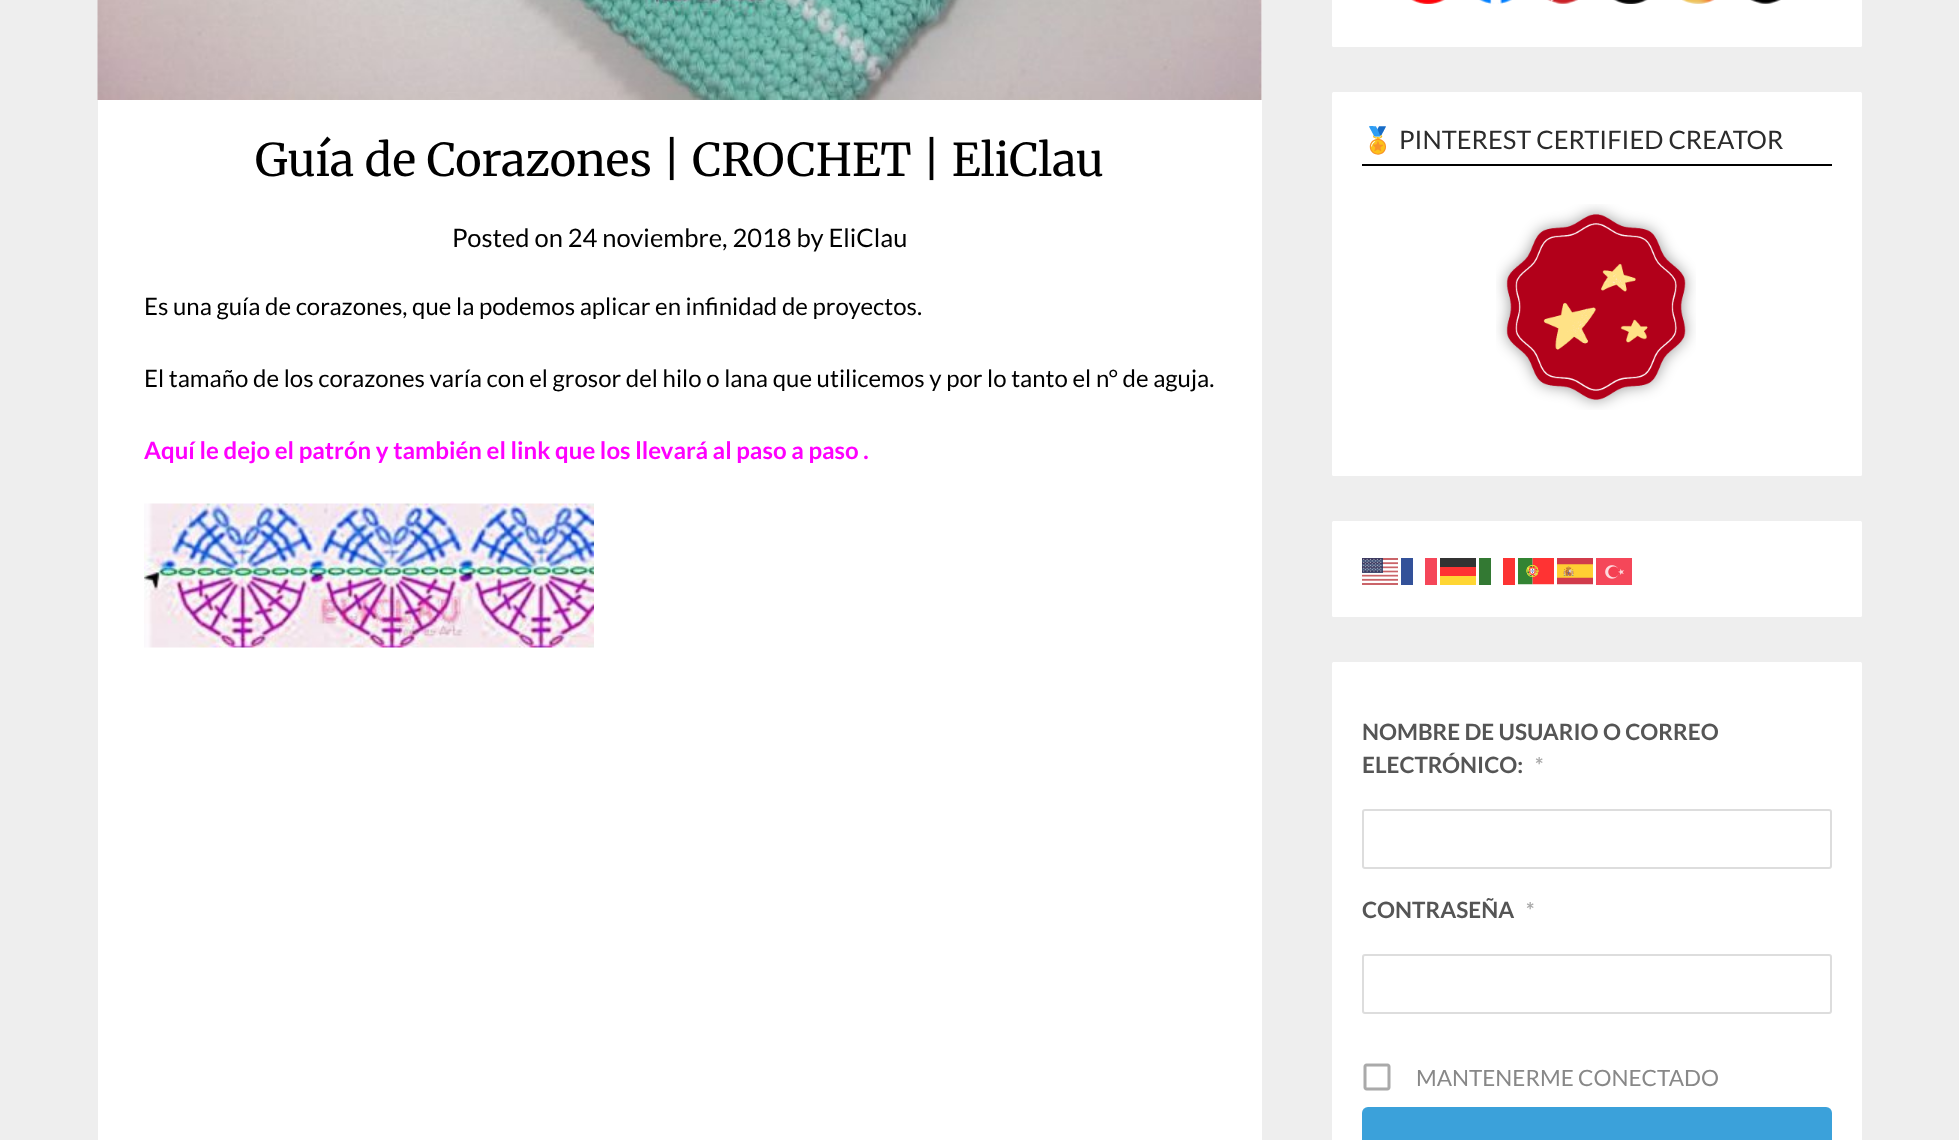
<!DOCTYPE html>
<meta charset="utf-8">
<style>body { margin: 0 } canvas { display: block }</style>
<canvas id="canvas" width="1959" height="1140"></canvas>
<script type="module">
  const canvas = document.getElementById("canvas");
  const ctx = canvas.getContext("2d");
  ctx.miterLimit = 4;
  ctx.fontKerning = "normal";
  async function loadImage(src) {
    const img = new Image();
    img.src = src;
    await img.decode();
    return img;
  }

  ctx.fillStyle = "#eeeeee";
  ctx.fillRect(0, 0, 1959, 1140);
  ctx.fillStyle = "#ffffff";
  ctx.fillRect(98, 0, 1164, 1140);
  ctx.drawImage(await loadImage("img1.png"), 97, 0, 1165, 100);
  ctx.font = "45px Merriweather";
  ctx.fillStyle = "#000000";
  ctx.fillText("Guía de Corazones | CROCHET | EliClau", 255, 176);
  ctx.font = "25.5px Lato";
  ctx.fillText("Posted on 24 noviembre, 2018 by EliClau", 452, 247);
  ctx.font = "24px Lato";
  ctx.fillText("Es una guía de corazones, que la podemos aplicar en infinidad de proyectos.", 144, 315);
  ctx.fillText("El tamaño de los corazones varía con el grosor del hilo o lana que utilicemos y por lo tanto el n° de aguja.", 144, 387);
  ctx.font = "bold 24px Lato";
  ctx.fillStyle = "#ff00ff";
  ctx.fillText("Aquí le dejo el patrón y también el link que los llevará al paso a paso .", 144, 459);
  ctx.drawImage(await loadImage("img2.png"), 144, 503, 450, 145);
  ctx.fillStyle = "#ffffff";
  ctx.beginPath();
  ctx.roundRect(1332, -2, 530, 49, 1.5);
  ctx.fill();
  ctx.drawImage(await loadImage("img3.png"), 1411, 0, 34, 4);
  ctx.drawImage(await loadImage("img4.png"), 1479, 0, 33, 4);
  ctx.drawImage(await loadImage("img5.png"), 1547, 0, 31, 4);
  ctx.drawImage(await loadImage("img6.png"), 1613, 0, 35, 4);
  ctx.drawImage(await loadImage("img7.png"), 1682, 0, 33, 4);
  ctx.drawImage(await loadImage("img8.png"), 1750, 0, 31, 4);
  ctx.beginPath();
  ctx.roundRect(1332, 92, 530, 384, 1.5);
  ctx.fill();
  ctx.fillStyle = "#000000";
  ctx.fillRect(1362, 164, 470, 2);
  ctx.font = "25.5px Noto Color Emoji";
  ctx.fillStyle = "#2b2b2b";
  ctx.fillText("🏅", 1362, 149);
  ctx.font = "25.5px Lato";
  ctx.fillText("PINTEREST CERTIFIED CREATOR", 1399, 149);
  ctx.drawImage(await loadImage("img9.png"), 1496, 204, 200, 206);
  ctx.fillStyle = "#ffffff";
  ctx.beginPath();
  ctx.roundRect(1332, 521, 530, 96, 1.5);
  ctx.fill();
  ctx.drawImage(await loadImage("img10.png"), 1362, 558, 36, 27);
  ctx.fillStyle = "#335199";
  ctx.fillRect(1401, 558, 12, 27);
  ctx.fillStyle = "#f54659";
  ctx.fillRect(1425, 558, 12, 27);
  ctx.fillStyle = "#333333";
  ctx.fillRect(1440, 558, 36, 9);
  ctx.fillStyle = "#337933";
  ctx.fillRect(1479, 558, 12, 27);
  ctx.fillStyle = "#fd3333";
  ctx.fillRect(1503, 558, 12, 27);
  ctx.drawImage(await loadImage("img11.png"), 1518, 558, 36, 27);
  ctx.drawImage(await loadImage("img12.png"), 1557, 558, 36, 27);
  ctx.drawImage(await loadImage("img13.png"), 1596, 558, 36, 27);
  ctx.fillStyle = "#ff3333";
  ctx.fillRect(1440, 567, 36, 9);
  ctx.fillStyle = "#ffd633";
  ctx.fillRect(1440, 576, 36, 9);
  ctx.fillStyle = "#ffffff";
  ctx.beginPath();
  ctx.roundRect(1332, 662, 530, 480, 1.5);
  ctx.fill();
  ctx.font = "bold 22.5px Lato";
  ctx.fillStyle = "#555555";
  ctx.fillText("NOMBRE DE USUARIO O CORREO", 1362, 740);
  ctx.fillText("ELECTRÓNICO:", 1362, 773);
  ctx.font = "bold 21px Lato";
  ctx.fillStyle = "#aaaaaa";
  ctx.fillText("*", 1535, 773);
  ctx.beginPath();
  ctx.roundRect(1363, 810, 468, 58, 2);
  ctx.strokeStyle = "#dddddd";
  ctx.lineWidth = 2;
  ctx.stroke();
  ctx.font = "bold 22.5px Lato";
  ctx.fillStyle = "#555555";
  ctx.fillText("CONTRASEÑA", 1362, 918);
  ctx.font = "bold 21px Lato";
  ctx.fillStyle = "#aaaaaa";
  ctx.fillText("*", 1526, 918);
  ctx.beginPath();
  ctx.roundRect(1363, 955, 468, 58, 2);
  ctx.stroke();
  ctx.drawImage(await loadImage("img14.png"), 1363, 1063, 28, 28);
  ctx.font = "22.5px Lato";
  ctx.fillStyle = "#888888";
  ctx.fillText("MANTENERME CONECTADO", 1416, 1086);
  ctx.fillStyle = "#3ba1da";
  ctx.beginPath();
  ctx.roundRect(1362, 1107, 470, 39, 6);
  ctx.fill();
</script>
